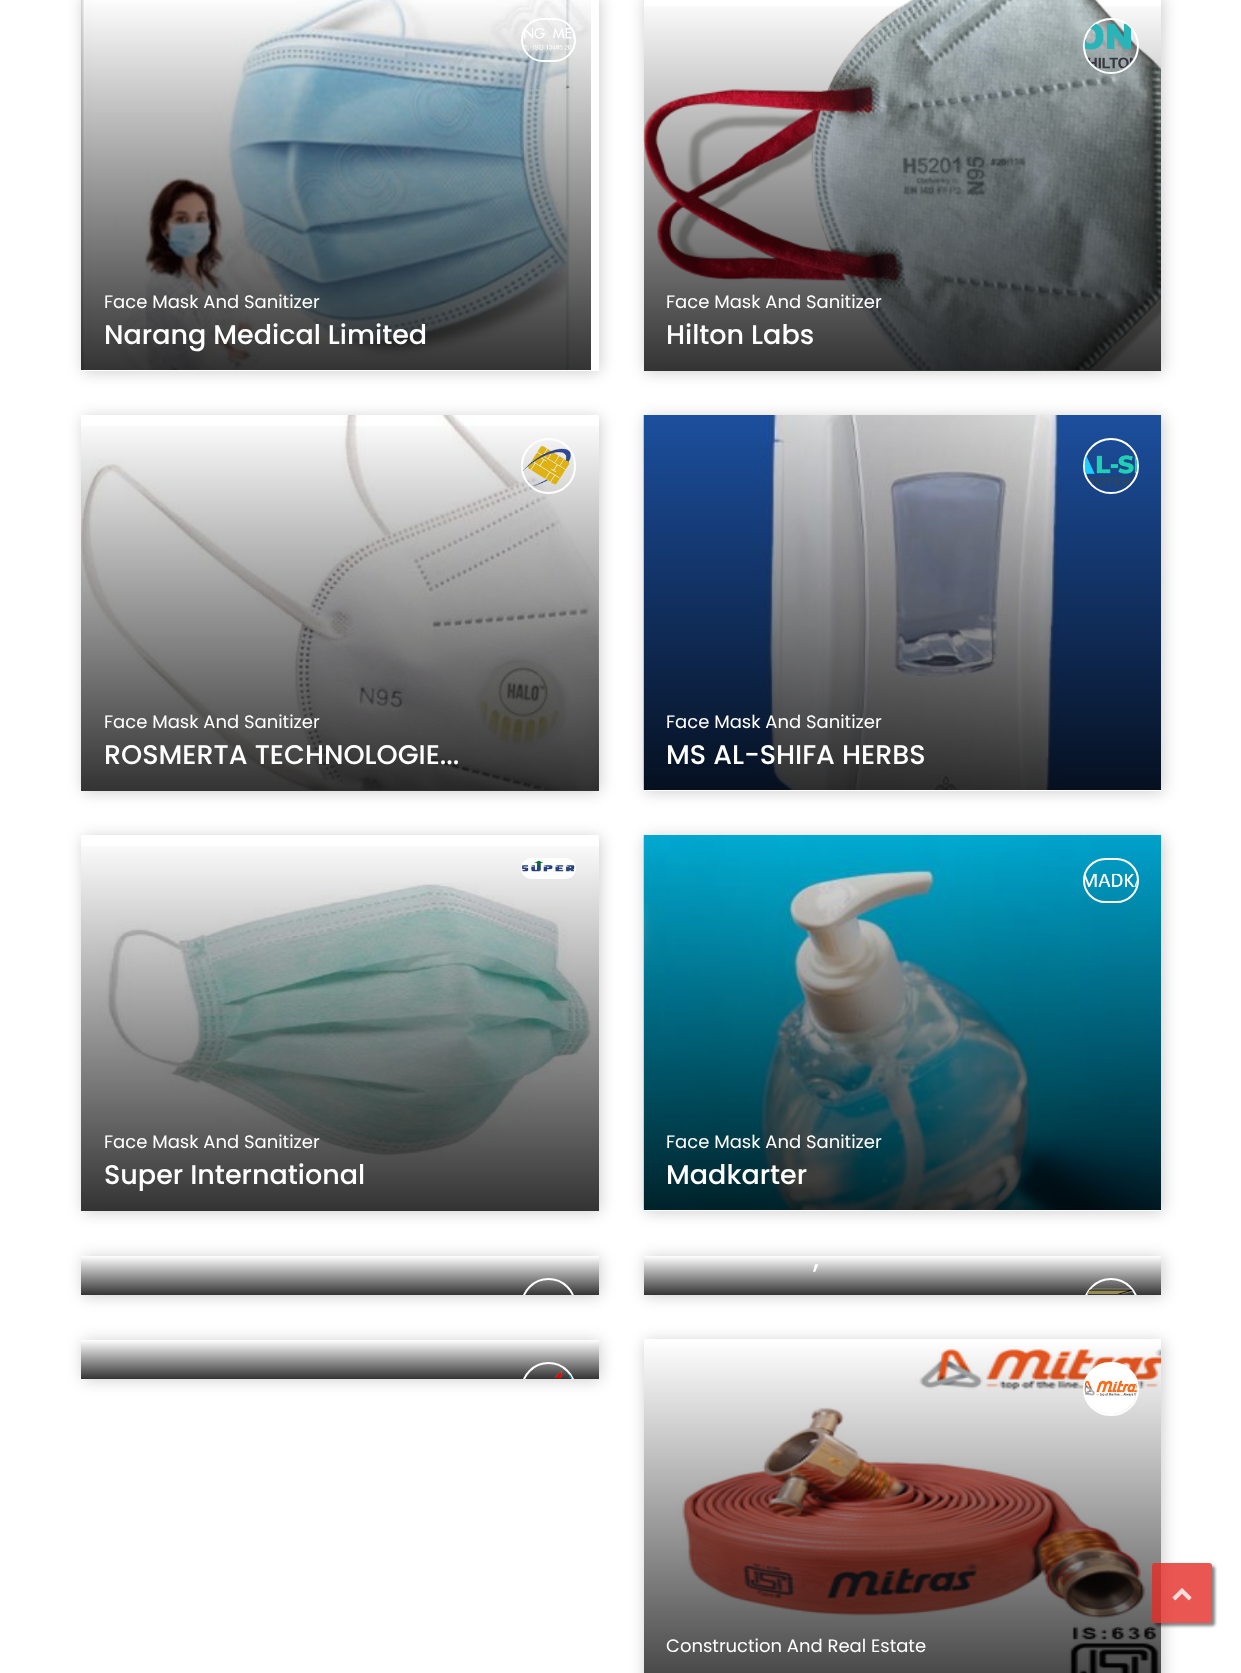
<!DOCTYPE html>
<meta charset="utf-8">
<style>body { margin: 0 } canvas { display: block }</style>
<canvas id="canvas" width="1241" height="1673"></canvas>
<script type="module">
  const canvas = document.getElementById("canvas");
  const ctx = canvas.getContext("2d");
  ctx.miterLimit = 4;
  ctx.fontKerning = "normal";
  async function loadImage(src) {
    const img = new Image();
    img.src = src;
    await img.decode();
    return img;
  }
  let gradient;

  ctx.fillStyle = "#ffffff";
  ctx.fillRect(0, 0, 1241, 1673);
  ctx.fillStyle = "rgba(0, 0, 0, 0.2)";
  ctx.filter = "blur(7.5px)";
  ctx.beginPath();
  ctx.rect(83, -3, 517, 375);
  ctx.fill();
  ctx.filter = "none";
  ctx.fillStyle = "#ffffff";
  ctx.fillRect(81, 0, 518, 371);
  ctx.drawImage(await loadImage("img1.png"), 81, 0, 510, 370);
  ctx.beginPath();
  ctx.roundRect(522, 19, 53, 42, 21);
  ctx.strokeStyle = "#ffffff";
  ctx.lineWidth = 2;
  ctx.stroke();
  ctx.drawImage(await loadImage("img2.png"), 524, 28, 50, 23);
  ctx.font = "18px Poppins";
  ctx.fillText("Face Mask And Sanitizer", 104, 308);
  ctx.font = "500 27px Poppins";
  ctx.fillText("Narang Medical Limited", 104, 344);
  ctx.fillStyle = "rgba(0, 0, 0, 0.2)";
  ctx.filter = "blur(7.5px)";
  ctx.beginPath();
  ctx.rect(645, -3, 518, 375);
  ctx.fill();
  ctx.filter = "none";
  ctx.fillStyle = "#ffffff";
  ctx.fillRect(644, 0, 517, 371);
  ctx.drawImage(await loadImage("img3.png"), 643, 0, 518, 370);
  gradient = ctx.createLinearGradient(902, -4.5, 902, 371);
  gradient.addColorStop(0, "rgba(0, 0, 0, 0)");
  gradient.addColorStop(1, "rgba(0, 0, 0, 0.8)");
  ctx.fillStyle = gradient;
  ctx.fillRect(644, 6, 517, 365);
  ctx.beginPath();
  ctx.arc(1111, 46, 27, 0, Math.PI * 2);
  ctx.stroke();
  ctx.drawImage(await loadImage("img4.png"), 1084, 23, 49, 46);
  ctx.font = "18px Poppins";
  ctx.fillStyle = "#ffffff";
  ctx.fillText("Face Mask And Sanitizer", 666, 308);
  ctx.font = "500 27px Poppins";
  ctx.fillText("Hilton Labs", 666, 344);
  ctx.fillStyle = "rgba(0, 0, 0, 0.2)";
  ctx.filter = "blur(7.5px)";
  ctx.beginPath();
  ctx.rect(83, 417, 517, 375);
  ctx.fill();
  ctx.filter = "none";
  ctx.fillStyle = "#ffffff";
  ctx.fillRect(81, 416, 518, 375);
  ctx.drawImage(await loadImage("img5.png"), 81, 415, 518, 375);
  gradient = ctx.createLinearGradient(340, 416, 340, 791);
  gradient.addColorStop(0, "rgba(0, 0, 0, 0)");
  gradient.addColorStop(1, "rgba(0, 0, 0, 0.8)");
  ctx.fillStyle = gradient;
  ctx.fillRect(81, 426, 518, 365);
  ctx.beginPath();
  ctx.roundRect(522, 439, 53, 54, 26.5);
  ctx.stroke();
  ctx.drawImage(await loadImage("img6.png"), 522, 445, 49, 41);
  ctx.font = "18px Poppins";
  ctx.fillStyle = "#ffffff";
  ctx.fillText("Face Mask And Sanitizer", 104, 728);
  ctx.font = "500 27px Poppins";
  ctx.fillText("ROSMERTA TECHNOLOGIE...", 104, 764);
  ctx.fillStyle = "rgba(0, 0, 0, 0.2)";
  ctx.filter = "blur(7.5px)";
  ctx.beginPath();
  ctx.rect(645, 417, 518, 375);
  ctx.fill();
  ctx.filter = "none";
  ctx.fillStyle = "#ffffff";
  ctx.fillRect(644, 790, 517, 1);
  ctx.drawImage(await loadImage("img7.png"), 643, 415, 518, 375);
  ctx.beginPath();
  ctx.arc(1111, 466, 27, 0, Math.PI * 2);
  ctx.stroke();
  ctx.drawImage(await loadImage("img8.png"), 1084, 455, 53, 31);
  ctx.font = "18px Poppins";
  ctx.fillText("Face Mask And Sanitizer", 666, 728);
  ctx.font = "500 27px Poppins";
  ctx.fillText("MS AL-SHIFA HERBS", 666, 764);
  ctx.fillStyle = "rgba(0, 0, 0, 0.2)";
  ctx.filter = "blur(7.5px)";
  ctx.beginPath();
  ctx.rect(83, 837, 517, 375);
  ctx.fill();
  ctx.filter = "none";
  ctx.fillStyle = "#ffffff";
  ctx.fillRect(81, 836, 518, 375);
  ctx.drawImage(await loadImage("img9.png"), 81, 835, 518, 325);
  gradient = ctx.createLinearGradient(340, 836, 340, 1211);
  gradient.addColorStop(0, "rgba(0, 0, 0, 0)");
  gradient.addColorStop(1, "rgba(0, 0, 0, 0.8)");
  ctx.fillStyle = gradient;
  ctx.fillRect(81, 846, 518, 365);
  ctx.beginPath();
  ctx.roundRect(522, 859, 53, 19, 9.5);
  ctx.stroke();
  ctx.drawImage(await loadImage("img10.png"), 522, 859, 53, 18);
  ctx.font = "18px Poppins";
  ctx.fillStyle = "#ffffff";
  ctx.fillText("Face Mask And Sanitizer", 104, 1148);
  ctx.font = "500 27px Poppins";
  ctx.fillText("Super International", 104, 1184);
  ctx.fillStyle = "rgba(0, 0, 0, 0.2)";
  ctx.filter = "blur(7.5px)";
  ctx.beginPath();
  ctx.rect(645, 837, 518, 375);
  ctx.fill();
  ctx.filter = "none";
  ctx.fillStyle = "#ffffff";
  ctx.fillRect(644, 1210, 517, 1);
  ctx.drawImage(await loadImage("img11.png"), 643, 835, 518, 375);
  ctx.beginPath();
  ctx.roundRect(1084, 859, 54, 43, 21.5);
  ctx.stroke();
  ctx.drawImage(await loadImage("img12.png"), 1085, 873, 52, 14);
  ctx.font = "18px Poppins";
  ctx.fillText("Face Mask And Sanitizer", 666, 1148);
  ctx.font = "500 27px Poppins";
  ctx.fillText("Madkarter", 666, 1184);
  ctx.fillStyle = "rgba(0, 0, 0, 0.2)";
  ctx.filter = "blur(7.5px)";
  ctx.beginPath();
  ctx.rect(83, 1257, 517, 39);
  ctx.fill();
  ctx.filter = "none";
  gradient = ctx.createLinearGradient(340, 1256, 340, 1295);
  gradient.addColorStop(0, "#ffffff");
  gradient.addColorStop(1, "#333333");
  ctx.fillStyle = gradient;
  ctx.fillRect(81, 1256, 518, 39);
  ctx.save();
  ctx.beginPath();
  ctx.rect(81, 1256, 518, 39);
  ctx.clip();
  ctx.beginPath();
  ctx.roundRect(522, 1279, 53, 142, 26.5);
  ctx.stroke();
  ctx.restore();
  ctx.fillStyle = "rgba(0, 0, 0, 0.2)";
  ctx.filter = "blur(7.5px)";
  ctx.beginPath();
  ctx.rect(645, 1257, 518, 39);
  ctx.fill();
  ctx.filter = "none";
  gradient = ctx.createLinearGradient(902, 1256, 902, 1295);
  gradient.addColorStop(0, "#ffffff");
  gradient.addColorStop(1, "#333333");
  ctx.fillStyle = gradient;
  ctx.fillRect(644, 1256, 517, 39);
  ctx.fillStyle = "#ffffff";
  ctx.fillText(",", 813, 1268);
  ctx.save();
  ctx.beginPath();
  ctx.rect(644, 1256, 517, 39);
  ctx.clip();
  ctx.beginPath();
  ctx.arc(1111, 1306, 27, 0, Math.PI * 2);
  ctx.stroke();
  ctx.restore();
  ctx.drawImage(await loadImage("img13.png"), 1087, 1288, 46, 6);
  ctx.fillStyle = "rgba(0, 0, 0, 0.2)";
  ctx.filter = "blur(7.5px)";
  ctx.beginPath();
  ctx.rect(83, 1341, 517, 39);
  ctx.fill();
  ctx.filter = "none";
  gradient = ctx.createLinearGradient(340, 1340, 340, 1379);
  gradient.addColorStop(0, "#ffffff");
  gradient.addColorStop(1, "#333333");
  ctx.fillStyle = gradient;
  ctx.fillRect(81, 1340, 518, 39);
  ctx.save();
  ctx.beginPath();
  ctx.rect(81, 1340, 518, 39);
  ctx.clip();
  ctx.beginPath();
  ctx.roundRect(522, 1363, 53, 54, 26.5);
  ctx.stroke();
  ctx.restore();
  ctx.drawImage(await loadImage("img14.png"), 554, 1371, 18, 7);
  ctx.fillStyle = "rgba(0, 0, 0, 0.2)";
  ctx.filter = "blur(7.5px)";
  ctx.beginPath();
  ctx.rect(645, 1341, 518, 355);
  ctx.fill();
  ctx.filter = "none";
  ctx.drawImage(await loadImage("img15.png"), 644, 1339, 517, 334);
  ctx.beginPath();
  ctx.roundRect(1084, 1363, 54, 52, 26);
  ctx.stroke();
  ctx.drawImage(await loadImage("img16.png"), 1084, 1364, 53, 50);
  ctx.font = "18px Poppins";
  ctx.fillStyle = "#ffffff";
  ctx.fillText("Construction And Real Estate", 666, 1652);
  ctx.save();
  ctx.beginPath();
  ctx.moveTo(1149, 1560);
  ctx.lineTo(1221, 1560);
  ctx.lineTo(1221, 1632);
  ctx.lineTo(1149, 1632);
  ctx.closePath();
  ctx.moveTo(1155, 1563);
  ctx.lineTo(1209, 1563);
  ctx.bezierCurveTo(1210.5, 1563, 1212, 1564.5, 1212, 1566);
  ctx.lineTo(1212, 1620);
  ctx.bezierCurveTo(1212, 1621.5, 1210.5, 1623, 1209, 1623);
  ctx.lineTo(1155, 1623);
  ctx.bezierCurveTo(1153.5, 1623, 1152, 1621.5, 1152, 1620);
  ctx.lineTo(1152, 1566);
  ctx.bezierCurveTo(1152, 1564.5, 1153.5, 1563, 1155, 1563);
  ctx.closePath();
  ctx.clip("evenodd");
  ctx.fillStyle = "rgba(0, 0, 0, 0.48)";
  ctx.filter = "blur(1.5px)";
  ctx.beginPath();
  ctx.roundRect(1155, 1566, 60, 60, 3);
  ctx.fill();
  ctx.filter = "none";
  ctx.restore();
  ctx.fillStyle = "rgba(229, 45, 39, 0.8)";
  ctx.beginPath();
  ctx.roundRect(1152, 1563, 60, 60, 3);
  ctx.fill();
  ctx.drawImage(await loadImage("img17.png"), 1172, 1588, 20, 13);
</script>
